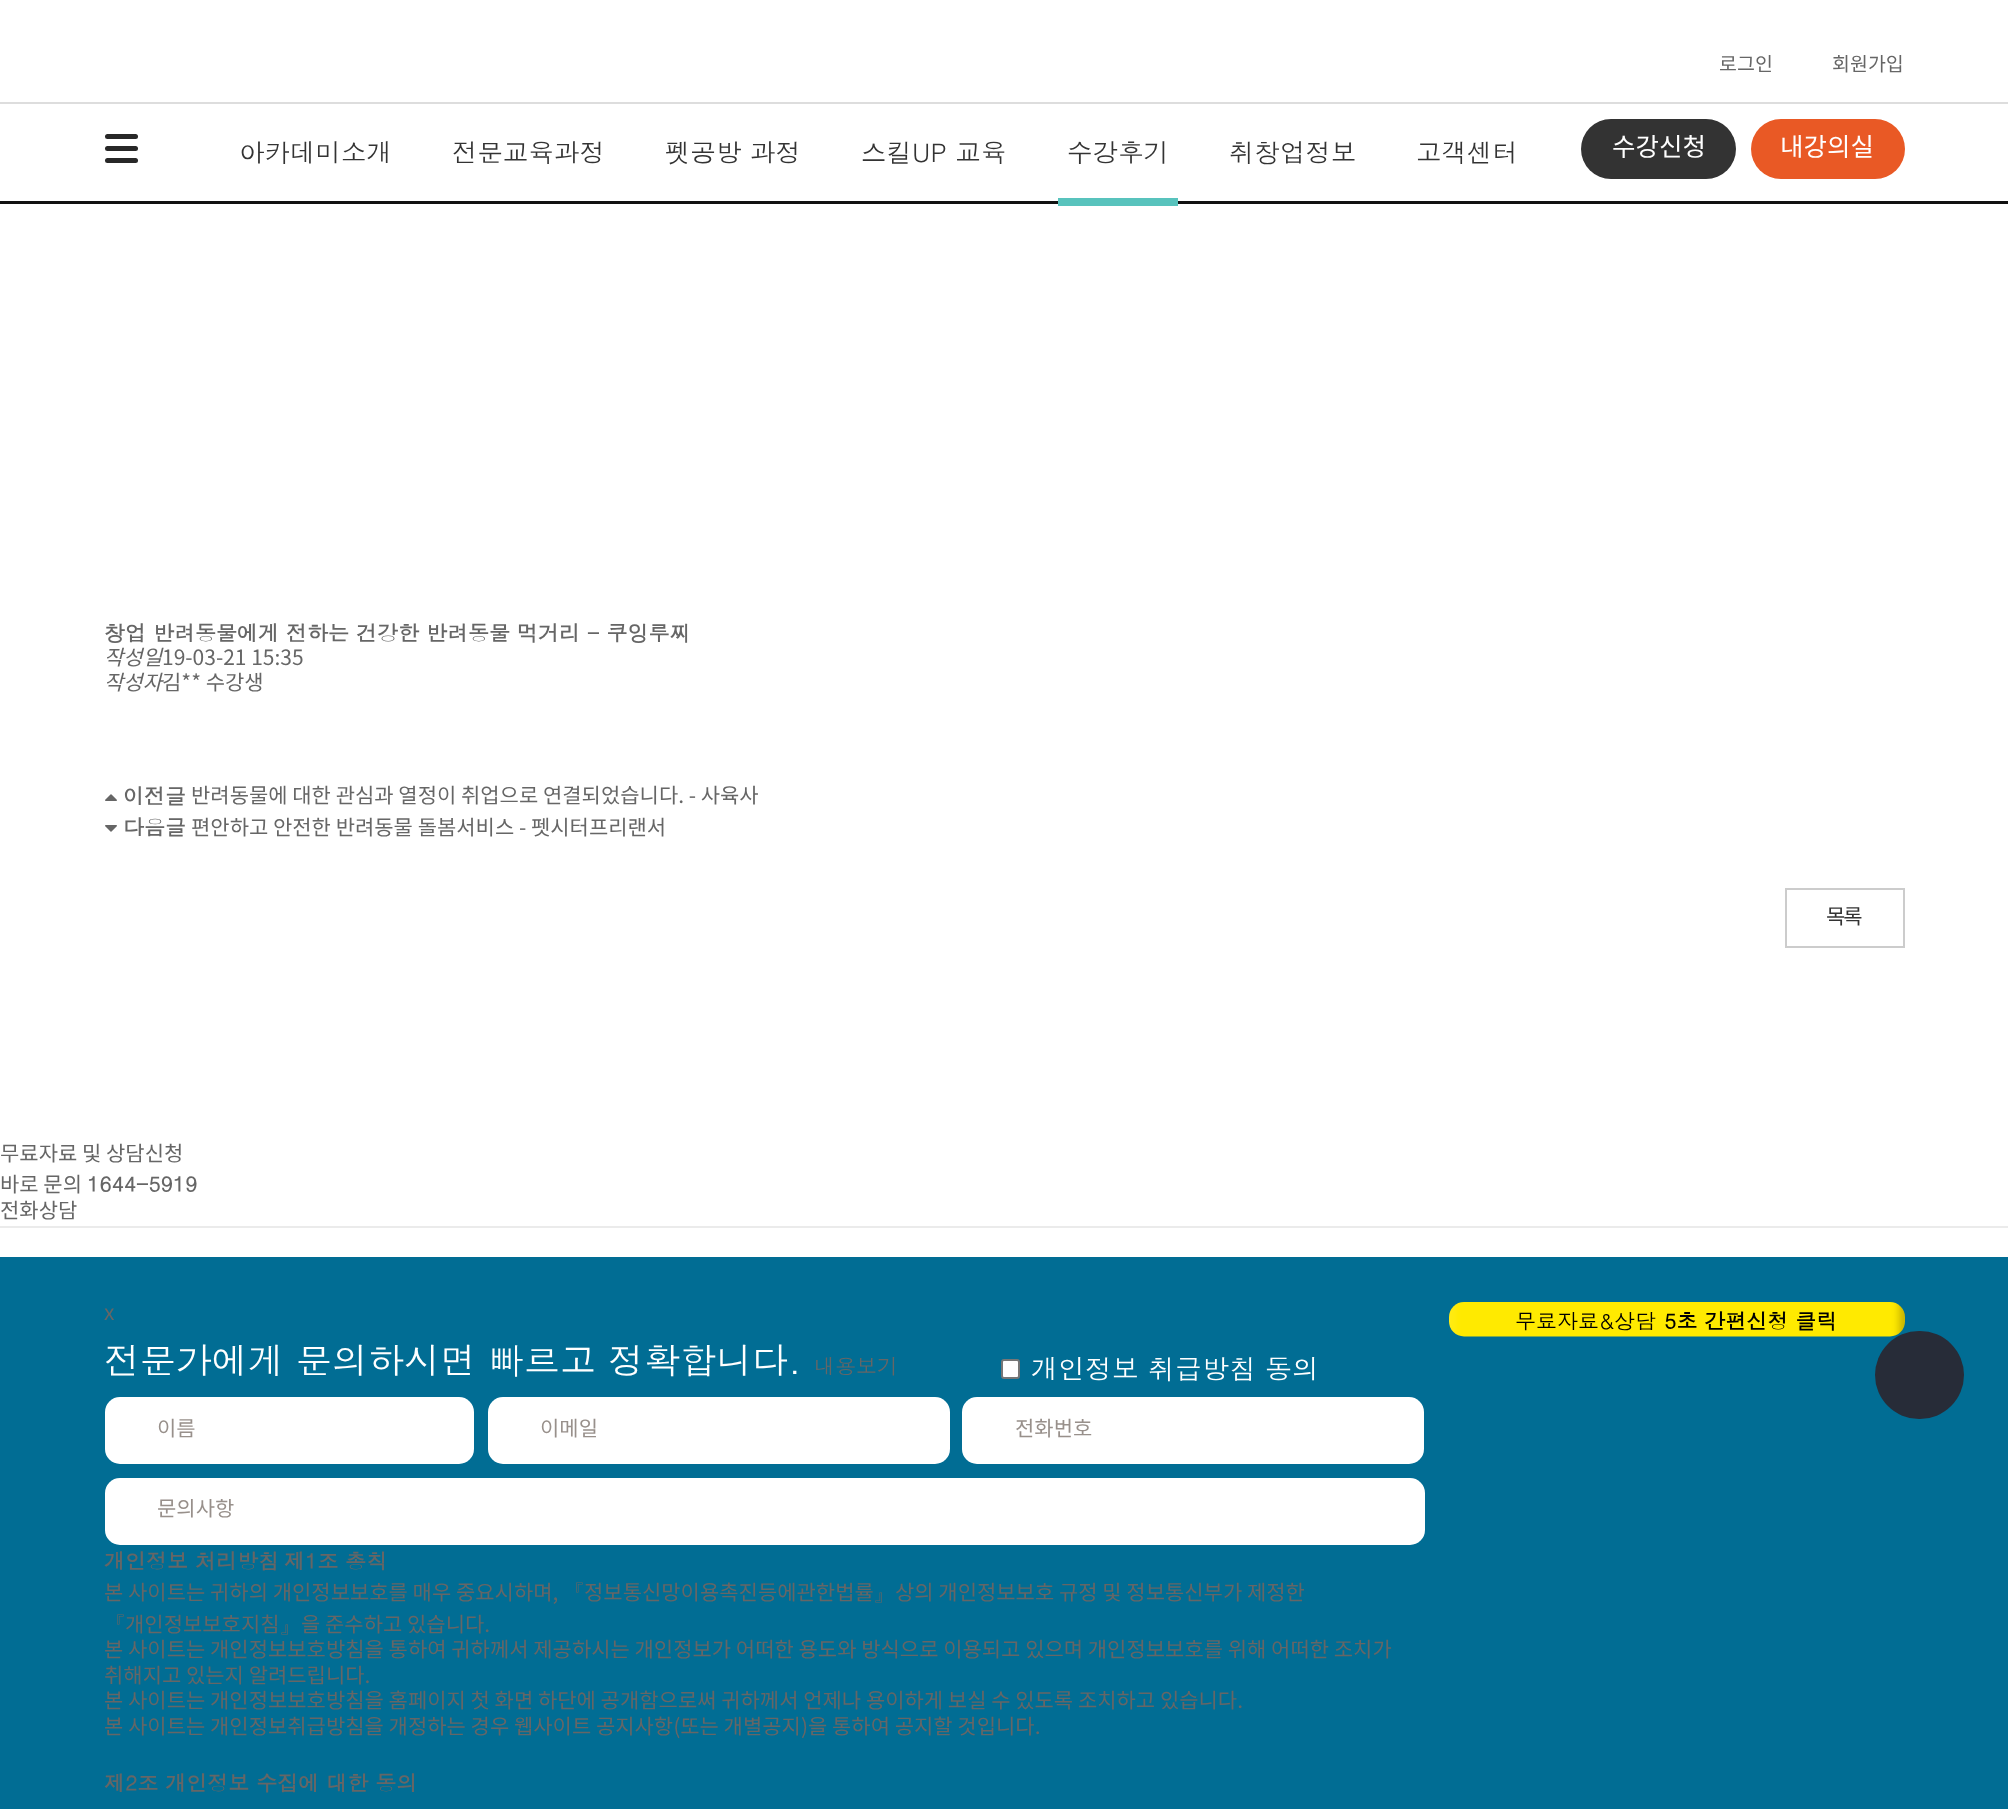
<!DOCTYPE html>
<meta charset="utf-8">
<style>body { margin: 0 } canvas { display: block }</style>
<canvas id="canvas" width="2008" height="1809"></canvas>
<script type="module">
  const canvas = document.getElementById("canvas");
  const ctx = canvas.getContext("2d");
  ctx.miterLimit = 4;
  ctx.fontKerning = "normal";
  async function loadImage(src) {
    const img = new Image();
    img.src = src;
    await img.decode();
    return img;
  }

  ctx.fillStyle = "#ffffff";
  ctx.fillRect(0, 0, 2008, 1809);
  ctx.fillStyle = "#111111";
  ctx.fillRect(0, 201, 2008, 3);
  ctx.font = "19.5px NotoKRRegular";
  ctx.fillStyle = "#666666";
  ctx.fillText("로그인", 1719, 71);
  ctx.fillText("회원가입", 1832, 71);
  ctx.fillStyle = "#dddddd";
  ctx.fillRect(0, 102, 2008, 2);
  ctx.fillStyle = "#282828";
  ctx.beginPath();
  ctx.roundRect(105, 134, 33, 5, 2.5);
  ctx.fill();
  ctx.beginPath();
  ctx.roundRect(105, 146, 33, 5, 2.5);
  ctx.fill();
  ctx.beginPath();
  ctx.roundRect(105, 158, 33, 5, 2.5);
  ctx.fill();
  ctx.font = "25.5px Dotum";
  ctx.fillStyle = "#333333";
  ctx.fillText("아카데미소개", 239, 162);
  ctx.fillText("전문교육과정", 452, 162);
  ctx.fillText("펫공방 과정", 665, 162);
  ctx.fillText("스킬UP 교육", 861, 162);
  ctx.fillText("수강후기", 1067, 162);
  ctx.fillStyle = "#58c3bd";
  ctx.fillRect(1058, 198, 120, 8);
  ctx.fillStyle = "#333333";
  ctx.fillText("취창업정보", 1229, 162);
  ctx.fillText("고객센터", 1416, 162);
  ctx.beginPath();
  ctx.roundRect(1581, 119, 155, 60, 30);
  ctx.fill();
  ctx.font = "25.5px NotoKRRegular";
  ctx.fillStyle = "#ffffff";
  ctx.fillText("수강신청", 1612, 156);
  ctx.fillStyle = "#e95925";
  ctx.beginPath();
  ctx.roundRect(1751, 119, 154, 60, 30);
  ctx.fill();
  ctx.fillStyle = "#ffffff";
  ctx.fillText("내강의실", 1780, 156);
  ctx.font = "bold 21px Dotum";
  ctx.fillStyle = "#666666";
  ctx.fillText("창업 반려동물에게 전하는 건강한 반려동물 먹거리 - 쿠잉루찌", 104, 641);
  ctx.font = "italic 21px NotoKRRegular";
  ctx.fillText("작성일", 104, 665);
  ctx.font = "21px NotoKRRegular";
  ctx.fillText("19-03-21 15:35", 162, 665);
  ctx.font = "italic 21px NotoKRRegular";
  ctx.fillText("작성자", 104, 690);
  ctx.font = "21px NotoKRRegular";
  ctx.fillText("김** 수강생", 162, 690);
  ctx.drawImage(await loadImage("img1.png"), 105, 794, 12, 7);
  ctx.font = "bold 21px Dotum";
  ctx.fillText("이전글", 123, 804);
  ctx.font = "21px NotoKRRegular";
  ctx.fillText("반려동물에 대한 관심과 열정이 취업으로 연결되었습니다. - 사육사", 191, 803);
  ctx.drawImage(await loadImage("img2.png"), 105, 825, 12, 7);
  ctx.font = "bold 21px Dotum";
  ctx.fillText("다음글", 123, 835);
  ctx.font = "21px NotoKRRegular";
  ctx.fillText("편안하고 안전한 반려동물 돌봄서비스 - 펫시터프리랜서", 191, 835);
  ctx.strokeStyle = "#cccccc";
  ctx.lineWidth = 2;
  ctx.strokeRect(1786, 889, 118, 58);
  ctx.letterSpacing = "-2px";
  ctx.fillStyle = "#333333";
  ctx.fillText("목록", 1826, 924);
  ctx.letterSpacing = "0px";
  ctx.fillStyle = "#666666";
  ctx.fillText("무료자료 및 상담신청", 0, 1161);
  ctx.fillText("바로 문의", 0, 1192);
  ctx.font = "bold 21px Dotum";
  ctx.fillText("1644-5919", 87, 1192);
  ctx.font = "21px NotoKRRegular";
  ctx.fillText("전화상담", 0, 1218);
  ctx.fillStyle = "#ebebeb";
  ctx.fillRect(0, 1226, 2008, 2);
  ctx.fillStyle = "#016d94";
  ctx.fillRect(0, 1257, 2008, 552);
  ctx.fillStyle = "#666666";
  ctx.fillText("x", 104, 1320);
  ctx.drawImage(await loadImage("img3.png"), 1449, 1302, 456, 35);
  ctx.font = "21px Dotum";
  ctx.fillStyle = "#000000";
  ctx.fillText("무료자료&상담", 1515, 1329);
  ctx.font = "bold 21px Dotum";
  ctx.fillText("5초 간편신청 클릭", 1664, 1329);
  ctx.font = "36px Dotum";
  ctx.fillStyle = "#ffffff";
  ctx.fillText("전문가에게 문의하시면 빠르고 정확합니다.", 104, 1374);
  ctx.font = "21px Dotum";
  ctx.fillStyle = "#666666";
  ctx.fillText("내용보기", 814, 1374);
  ctx.fillStyle = "#ffffff";
  ctx.beginPath();
  ctx.roundRect(1002, 1360, 17, 18, 2);
  ctx.fill();
  ctx.strokeStyle = "#767676";
  ctx.stroke();
  ctx.font = "27px Dotum";
  ctx.fillText("개인정보 취급방침 동의", 1031, 1379);
  ctx.beginPath();
  ctx.roundRect(105, 1397, 369, 67, 15);
  ctx.fill();
  ctx.font = "21px NotoKRRegular";
  ctx.fillStyle = "#98908b";
  ctx.fillText("이름", 157, 1436);
  ctx.fillStyle = "#ffffff";
  ctx.beginPath();
  ctx.roundRect(488, 1397, 462, 67, 15);
  ctx.fill();
  ctx.fillStyle = "#98908b";
  ctx.fillText("이메일", 540, 1436);
  ctx.fillStyle = "#ffffff";
  ctx.beginPath();
  ctx.roundRect(962, 1397, 462, 67, 15);
  ctx.fill();
  ctx.fillStyle = "#98908b";
  ctx.fillText("전화번호", 1015, 1436);
  ctx.fillStyle = "#ffffff";
  ctx.beginPath();
  ctx.roundRect(105, 1478, 1320, 67, 15);
  ctx.fill();
  ctx.save();
  ctx.beginPath();
  ctx.rect(158, 1499, 1252, 25);
  ctx.clip();
  ctx.fillStyle = "#98908b";
  ctx.fillText("문의사항", 157, 1516);
  ctx.restore();
  ctx.font = "bold 21px Dotum";
  ctx.fillStyle = "#666666";
  ctx.fillText("개인정보 처리방침", 104, 1569);
  ctx.fillText("제1조 총칙", 284, 1569);
  ctx.font = "21px NotoKRRegular";
  ctx.fillText("본 사이트는 귀하의 개인정보보호를 매우 중요시하며,", 104, 1600);
  ctx.font = "21px Dotum";
  ctx.fillText("『", 563, 1600);
  ctx.font = "21px NotoKRRegular";
  ctx.fillText("정보통신망이용촉진등에관한법률", 584, 1600);
  ctx.font = "21px Dotum";
  ctx.fillText("』", 874, 1600);
  ctx.font = "21px NotoKRRegular";
  ctx.fillText("상의 개인정보보호 규정 및 정보통신부가 제정한", 895, 1600);
  ctx.font = "21px Dotum";
  ctx.fillText("『", 104, 1632);
  ctx.font = "21px NotoKRRegular";
  ctx.fillText("개인정보보호지침", 125, 1632);
  ctx.font = "21px Dotum";
  ctx.fillText("』", 280, 1632);
  ctx.font = "21px NotoKRRegular";
  ctx.fillText("을 준수하고 있습니다.", 301, 1632);
  ctx.fillText("본 사이트는 개인정보보호방침을 통하여 귀하께서 제공하시는 개인정보가 어떠한 용도와 방식으로 이용되고 있으며 개인정보보호를 위해 어떠한 조치가", 104, 1657);
  ctx.fillText("취해지고 있는지 알려드립니다.", 104, 1683);
  ctx.fillText("본 사이트는 개인정보보호방침을 홈페이지 첫 화면 하단에 공개함으로써 귀하께서 언제나 용이하게 보실 수 있도록 조치하고 있습니다.", 104, 1708);
  ctx.fillText("본 사이트는 개인정보취급방침을 개정하는 경우 웹사이트 공지사항(또는 개별공지)을 통하여 공지할 것입니다.", 104, 1734);
  ctx.font = "bold 21px Dotum";
  ctx.fillText("제2조 개인정보 수집에 대한 동의", 104, 1791);
  ctx.fillStyle = "#272c38";
  ctx.beginPath();
  ctx.roundRect(1875, 1331, 89, 88, 44);
  ctx.fill();
</script>
